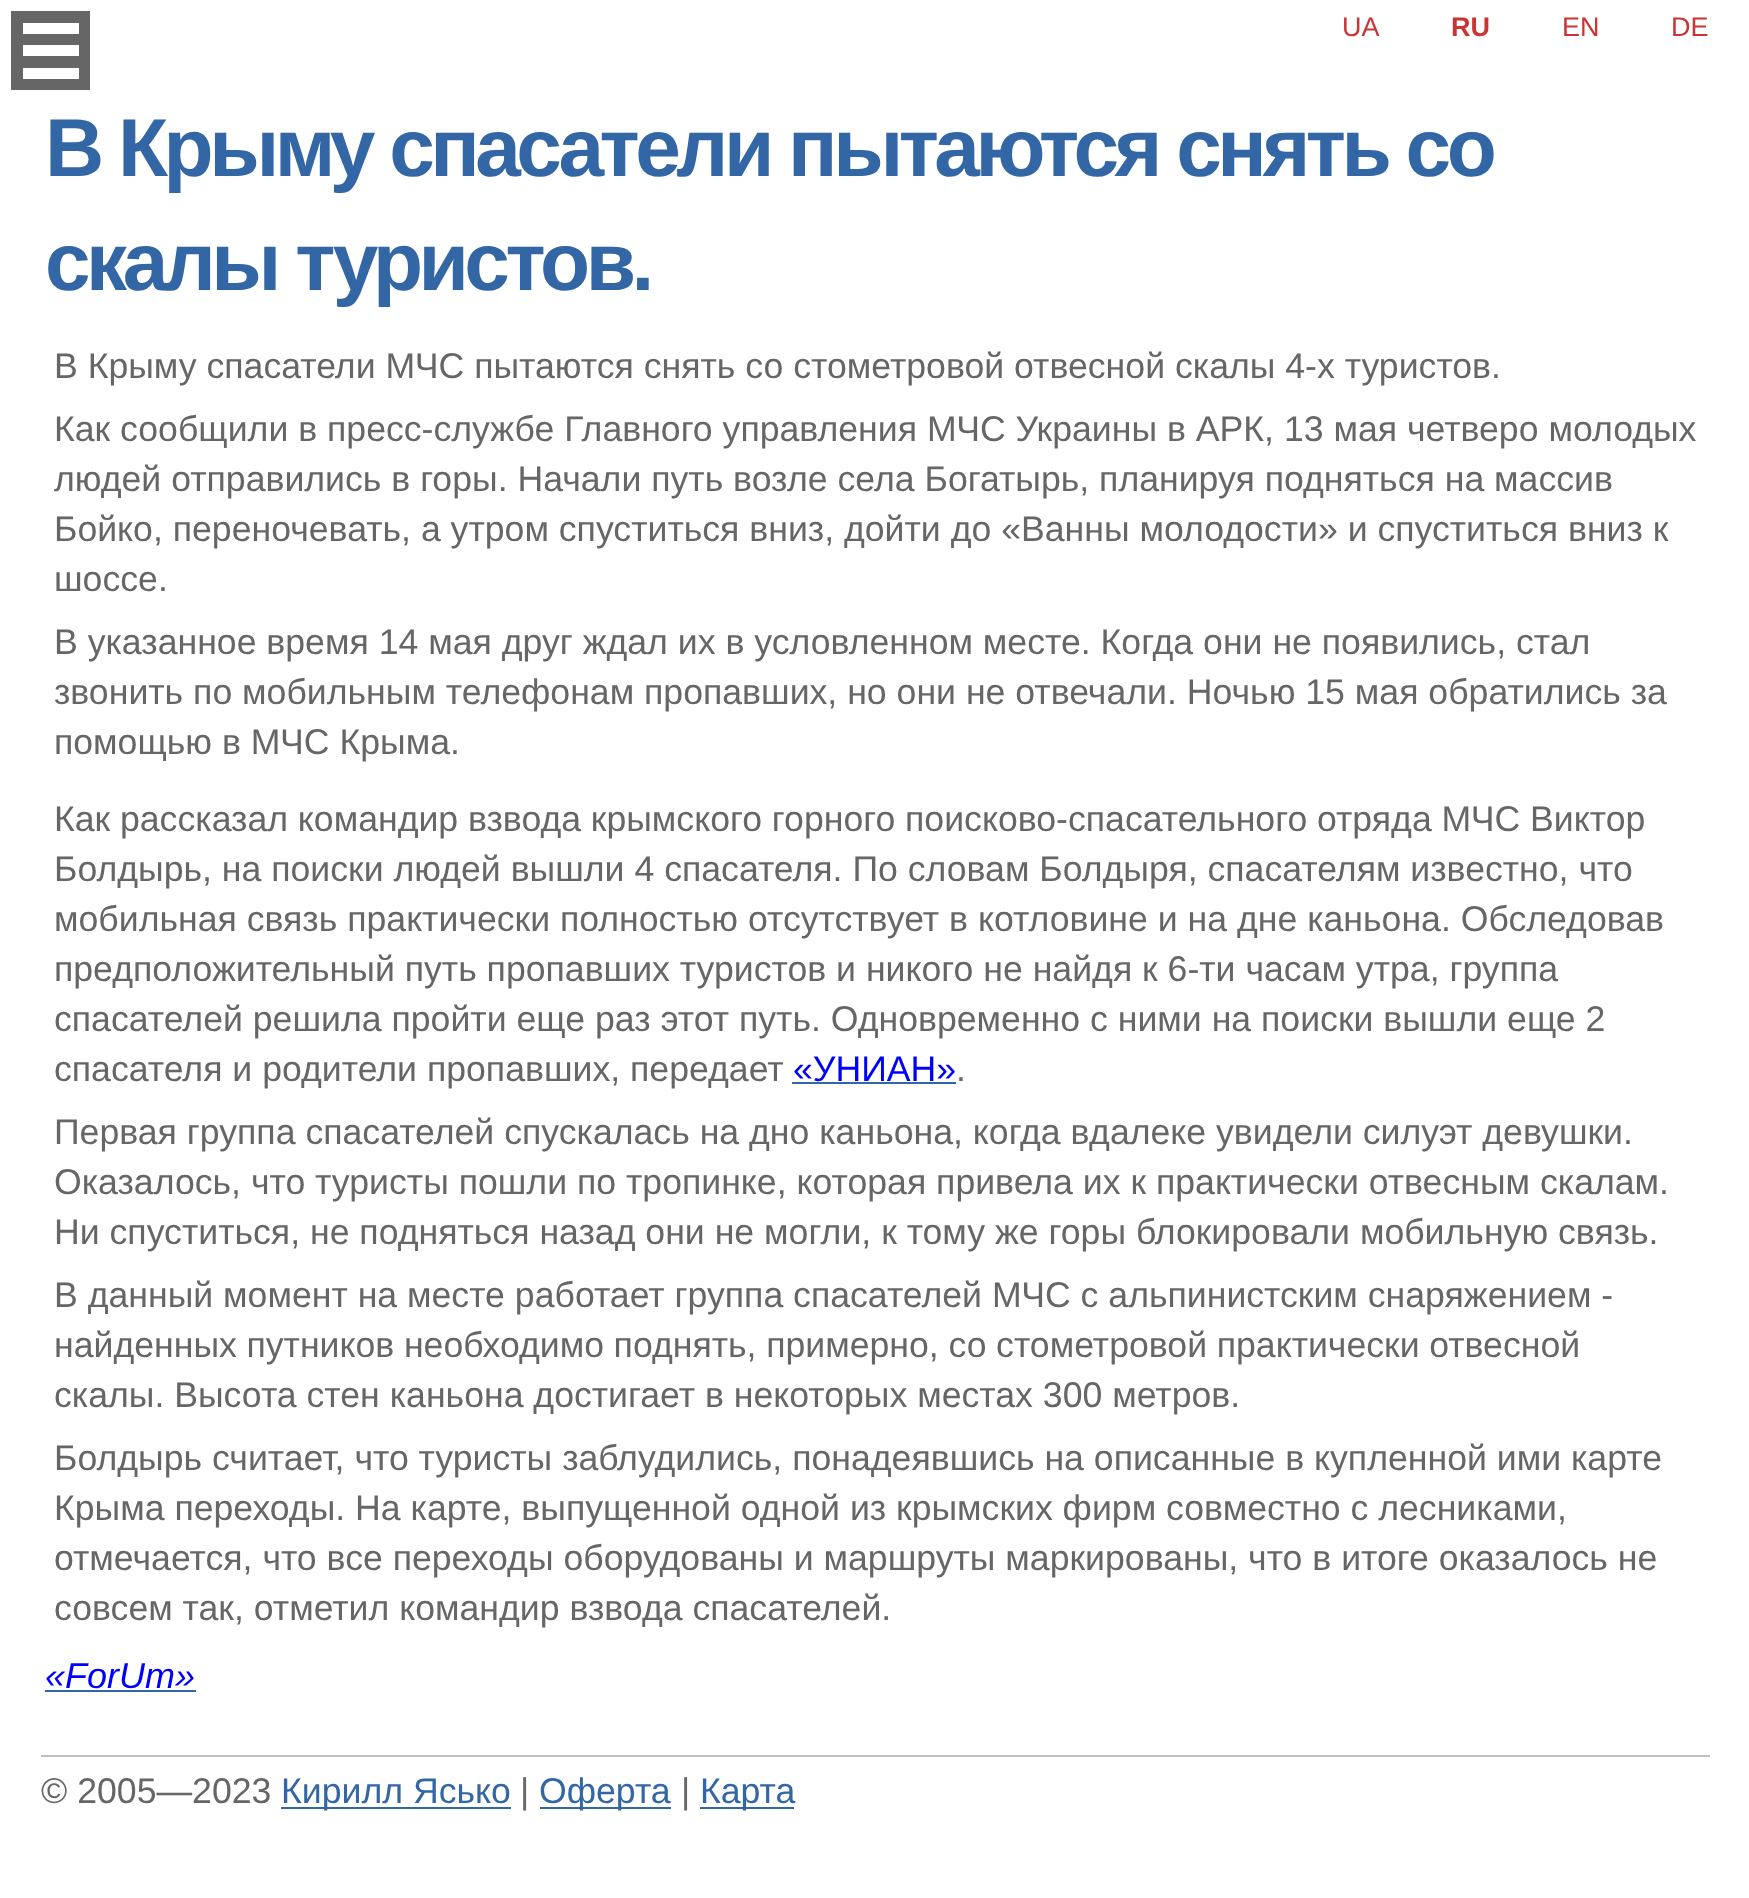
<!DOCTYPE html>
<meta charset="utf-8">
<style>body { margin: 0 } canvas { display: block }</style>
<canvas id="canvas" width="1749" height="1898"></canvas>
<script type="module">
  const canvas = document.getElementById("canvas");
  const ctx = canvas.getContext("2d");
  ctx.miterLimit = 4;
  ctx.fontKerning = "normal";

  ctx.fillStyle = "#ffffff";
  ctx.fillRect(0, 0, 1749, 1898);
  ctx.fillStyle = "#666666";
  ctx.fillRect(11, 11, 79, 79);
  ctx.fillStyle = "#ffffff";
  ctx.fillRect(23, 23, 56, 11);
  ctx.fillRect(23, 45, 56, 11);
  ctx.fillRect(23, 68, 56, 11);
  ctx.font = "27px Liberation Sans";
  ctx.fillStyle = "#cc3333";
  ctx.fillText("UA", 1342, 36);
  ctx.font = "bold 27px Liberation Sans";
  ctx.fillText("RU", 1451, 36);
  ctx.font = "27px Liberation Sans";
  ctx.fillText("EN", 1562, 36);
  ctx.fillText("DE", 1671, 36);
  ctx.letterSpacing = "-4.5px";
  ctx.font = "bold 82px Liberation Sans";
  ctx.fillStyle = "#3266a5";
  ctx.fillText("В Крыму спасатели пытаются снять со", 45, 176);
  ctx.fillText("скалы туристов.", 45, 290);
  ctx.letterSpacing = "0px";
  ctx.font = "35.65px Liberation Sans";
  ctx.fillStyle = "#666666";
  ctx.fillText("В Крыму спасатели МЧС пытаются снять со стометровой отвесной скалы 4-х туристов.", 54, 378);
  ctx.fillText("Как сообщили в пресс-службе Главного управления МЧС Украины в АРК, 13 мая четверо молодых", 54, 441);
  ctx.fillText("людей отправились в горы. Начали путь возле села Богатырь, планируя подняться на массив", 54, 491);
  ctx.fillText("Бойко, переночевать, а утром спуститься вниз, дойти до «Ванны молодости» и спуститься вниз к", 54, 541);
  ctx.fillText("шоссе.", 54, 591);
  ctx.fillText("В указанное время 14 мая друг ждал их в условленном месте. Когда они не появились, стал", 54, 654);
  ctx.fillText("звонить по мобильным телефонам пропавших, но они не отвечали. Ночью 15 мая обратились за", 54, 704);
  ctx.fillText("помощью в МЧС Крыма.", 54, 754);
  ctx.wordSpacing = "-0.1px";
  ctx.fillText("Как рассказал командир взвода крымского горного поисково-спасательного отряда МЧС Виктор", 54, 831);
  ctx.wordSpacing = "0px";
  ctx.fillText("Болдырь, на поиски людей вышли 4 спасателя. По словам Болдыря, спасателям известно, что", 54, 881);
  ctx.fillText("мобильная связь практически полностью отсутствует в котловине и на дне каньона. Обследовав", 54, 931);
  ctx.fillText("предположительный путь пропавших туристов и никого не найдя к 6-ти часам утра, группа", 54, 981);
  ctx.fillText("спасателей решила пройти еще раз этот путь. Одновременно с ними на поиски вышли еще 2", 54, 1031);
  ctx.fillText("спасателя и родители пропавших, передает", 54, 1081);
  ctx.fillStyle = "#0000ff";
  ctx.fillText("«УНИАН»", 793, 1081);
  ctx.fillStyle = "#3266a5";
  ctx.fillRect(792, 1082, 164, 2);
  ctx.fillStyle = "#666666";
  ctx.fillText(".", 956, 1081);
  ctx.fillText("Первая группа спасателей спускалась на дно каньона, когда вдалеке увидели силуэт девушки.", 54, 1144);
  ctx.fillText("Оказалось, что туристы пошли по тропинке, которая привела их к практически отвесным скалам.", 54, 1194);
  ctx.fillText("Ни спуститься, не подняться назад они не могли, к тому же горы блокировали мобильную связь.", 54, 1244);
  ctx.fillText("В данный момент на месте работает группа спасателей МЧС с альпинистским снаряжением -", 54, 1307);
  ctx.wordSpacing = "-0.25px";
  ctx.fillText("найденных путников необходимо поднять, примерно, со стометровой практически отвесной", 54, 1357);
  ctx.wordSpacing = "0px";
  ctx.fillText("скалы. Высота стен каньона достигает в некоторых местах 300 метров.", 54, 1407);
  ctx.fillText("Болдырь считает, что туристы заблудились, понадеявшись на описанные в купленной ими карте", 54, 1470);
  ctx.fillText("Крыма переходы. На карте, выпущенной одной из крымских фирм совместно с лесниками,", 54, 1520);
  ctx.fillText("отмечается, что все переходы оборудованы и маршруты маркированы, что в итоге оказалось не", 54, 1570);
  ctx.fillText("совсем так, отметил командир взвода спасателей.", 54, 1620);
  ctx.font = "italic 36px Liberation Sans";
  ctx.fillStyle = "#0000ff";
  ctx.fillText("«ForUm»", 45, 1688);
  ctx.fillStyle = "#3266a5";
  ctx.fillRect(45, 1690, 151, 2);
  ctx.fillStyle = "#c0c0c0";
  ctx.fillRect(41, 1755, 1669, 2);
  ctx.font = "35.65px Liberation Sans";
  ctx.fillStyle = "#666666";
  ctx.fillText("© 2005—2023", 41, 1803);
  ctx.fillStyle = "#3266a5";
  ctx.fillRect(281, 1807, 230, 2);
  ctx.fillText("Кирилл Ясько", 281, 1803);
  ctx.fillStyle = "#666666";
  ctx.fillText("|", 520, 1803);
  ctx.fillStyle = "#3266a5";
  ctx.fillRect(540, 1807, 131, 2);
  ctx.fillText("Оферта", 539, 1803);
  ctx.fillStyle = "#666666";
  ctx.fillText("|", 681, 1803);
  ctx.fillStyle = "#3266a5";
  ctx.fillRect(700, 1807, 94, 2);
  ctx.fillText("Карта", 700, 1803);
</script>
